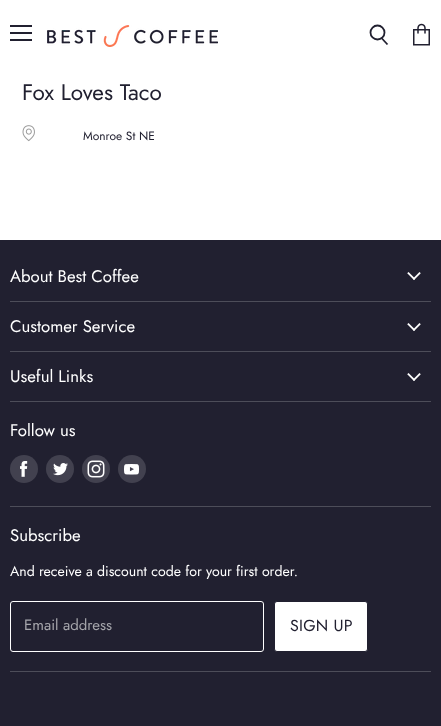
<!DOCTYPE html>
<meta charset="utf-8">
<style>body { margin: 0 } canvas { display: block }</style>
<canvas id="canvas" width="441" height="726"></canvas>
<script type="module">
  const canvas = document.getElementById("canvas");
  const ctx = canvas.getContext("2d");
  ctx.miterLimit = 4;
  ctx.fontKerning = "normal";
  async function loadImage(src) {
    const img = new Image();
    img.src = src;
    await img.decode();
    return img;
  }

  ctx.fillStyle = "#ffffff";
  ctx.fillRect(0, 0, 441, 726);
  ctx.fillStyle = "#212030";
  ctx.fillRect(10, 25, 22, 2);
  ctx.fillRect(10, 32, 22, 2);
  ctx.fillRect(10, 39, 22, 2);
  ctx.drawImage(await loadImage("img1.png"), 47, 25, 171, 22);
  ctx.beginPath();
  ctx.moveTo(387.5, 44.5);
  ctx.lineTo(381.5, 38);
  ctx.strokeStyle = "#212030";
  ctx.lineWidth = 1.8;
  ctx.stroke();
  ctx.beginPath();
  ctx.arc(377.5, 32.5, 7, 0, Math.PI * 2);
  ctx.stroke();
  ctx.drawImage(await loadImage("img2.png"), 413, 23, 17, 23);
  ctx.font = "22.5px Jost";
  ctx.fillText("Fox Loves Taco", 22, 100);
  ctx.drawImage(await loadImage("img3.png"), 22, 125, 13, 17);
  ctx.font = "12px Jost";
  ctx.fillText("Monroe St NE", 83, 140);
  ctx.fillRect(0, 240, 441, 486);
  ctx.fillStyle = "#4d4d59";
  ctx.fillRect(10, 301, 421, 1);
  ctx.font = "16.75px Jost";
  ctx.fillStyle = "#ffffff";
  ctx.fillText("About Best Coffee", 10, 282);
  ctx.drawImage(await loadImage("img4.png"), 407, 272, 14, 8);
  ctx.fillStyle = "#4d4d59";
  ctx.fillRect(10, 351, 421, 1);
  ctx.fillStyle = "#ffffff";
  ctx.fillText("Customer Service", 10, 332);
  ctx.drawImage(await loadImage("img4.png"), 407, 323, 14, 8);
  ctx.fillStyle = "#4d4d59";
  ctx.fillRect(10, 401, 421, 1);
  ctx.fillStyle = "#ffffff";
  ctx.fillText("Useful Links", 10, 382);
  ctx.drawImage(await loadImage("img4.png"), 407, 373, 14, 8);
  ctx.fillStyle = "#4d4d59";
  ctx.fillRect(10, 506, 421, 1);
  ctx.fillStyle = "#ffffff";
  ctx.fillText("Follow us", 10, 436);
  ctx.fillStyle = "#42414f";
  ctx.beginPath();
  ctx.arc(24, 469, 14, 0, Math.PI * 2);
  ctx.fill();
  ctx.drawImage(await loadImage("img5.png"), 20, 461, 8, 16);
  ctx.beginPath();
  ctx.arc(60, 469, 14, 0, Math.PI * 2);
  ctx.fill();
  ctx.drawImage(await loadImage("img6.png"), 53, 463, 15, 13);
  ctx.beginPath();
  ctx.arc(96, 469, 14, 0, Math.PI * 2);
  ctx.fill();
  ctx.drawImage(await loadImage("img7.png"), 87, 460, 18, 18);
  ctx.beginPath();
  ctx.arc(132, 469, 14, 0, Math.PI * 2);
  ctx.fill();
  ctx.drawImage(await loadImage("img8.png"), 124, 464, 15, 11);
  ctx.fillStyle = "#4d4d59";
  ctx.fillRect(10, 671, 421, 1);
  ctx.fillStyle = "#ffffff";
  ctx.fillText("Subscribe", 10, 541);
  ctx.font = "14.1px Jost";
  ctx.fillText("And receive a discount code for your first order.", 10, 576);
  ctx.beginPath();
  ctx.roundRect(10.5, 601.5, 253, 50, 2.5);
  ctx.strokeStyle = "#ffffff";
  ctx.lineWidth = 1;
  ctx.stroke();
  ctx.font = "15px Jost";
  ctx.fillStyle = "#a6a6ac";
  ctx.fillText("Email address", 24, 630);
  ctx.fillStyle = "#ffffff";
  ctx.beginPath();
  ctx.roundRect(274.5, 601.5, 93, 50, 2.5);
  ctx.fill();
  ctx.strokeStyle = "#212030";
  ctx.stroke();
  ctx.letterSpacing = "0.25px";
  ctx.font = "16px Jost";
  ctx.fillStyle = "#212030";
  ctx.fillText("SIGN UP", 290, 631);
</script>
